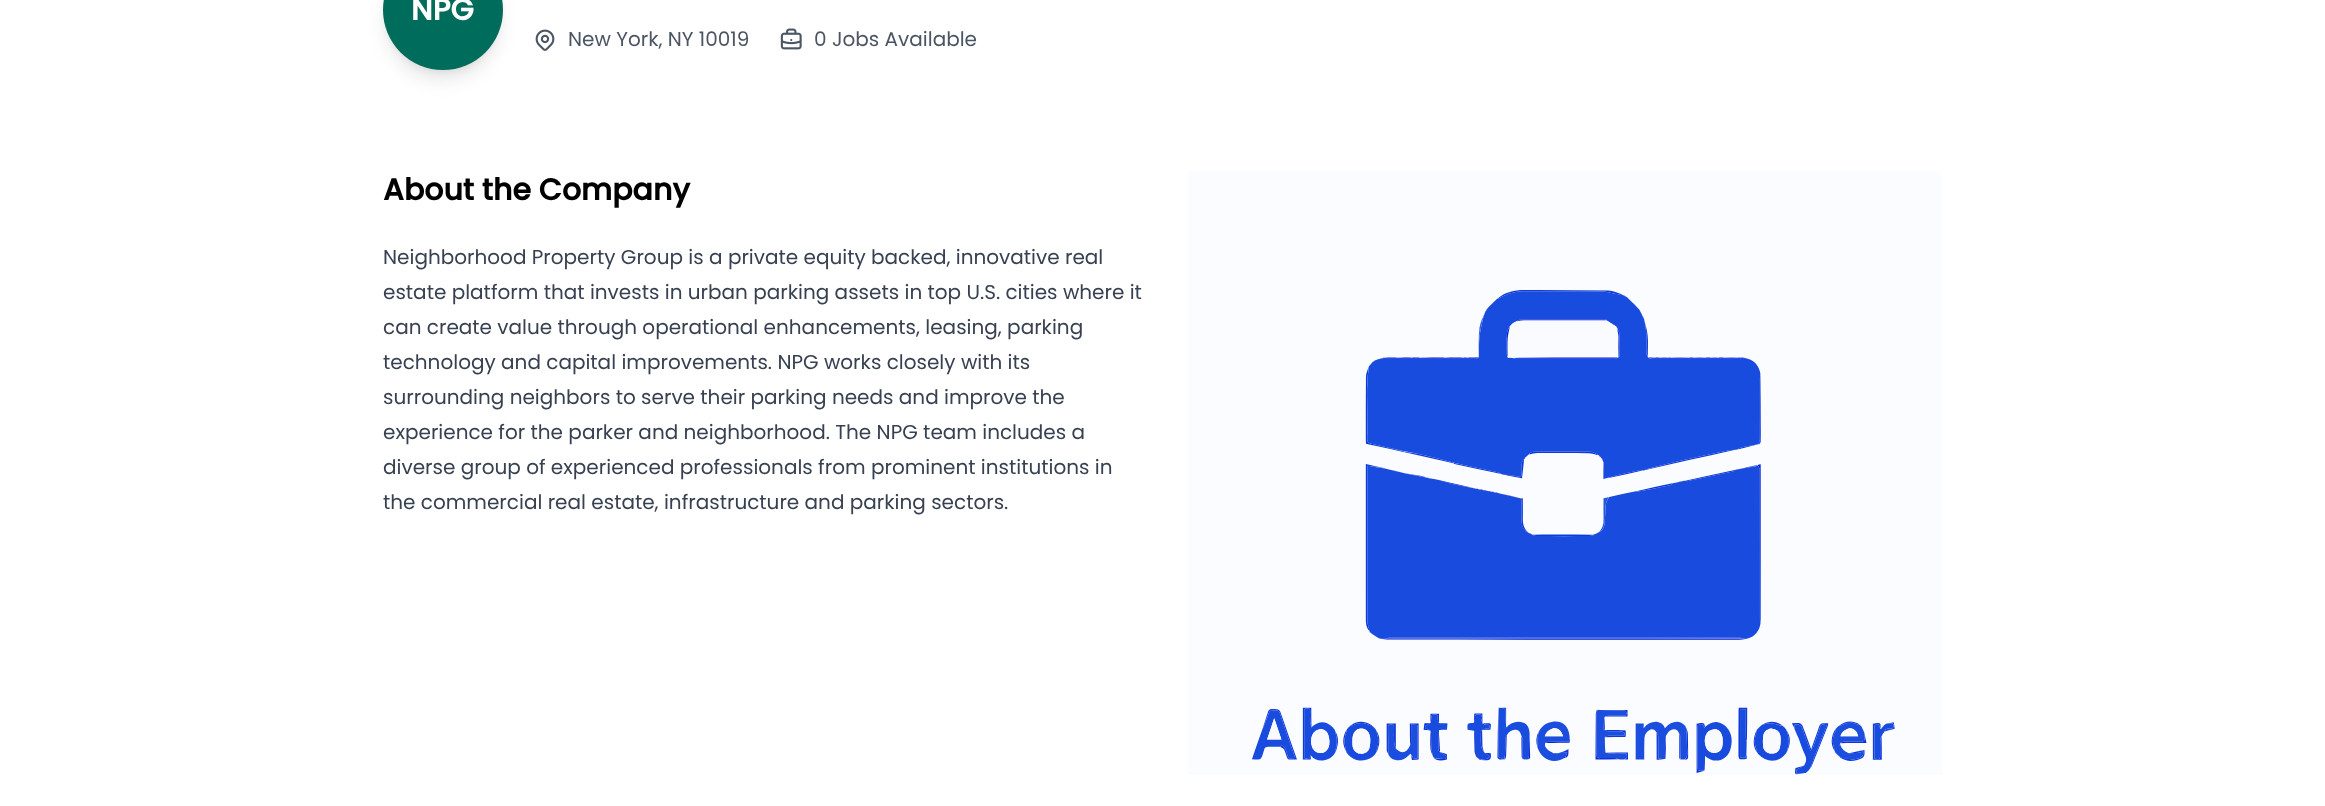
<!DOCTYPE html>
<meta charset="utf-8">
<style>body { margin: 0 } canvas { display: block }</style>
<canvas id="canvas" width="2325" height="806"></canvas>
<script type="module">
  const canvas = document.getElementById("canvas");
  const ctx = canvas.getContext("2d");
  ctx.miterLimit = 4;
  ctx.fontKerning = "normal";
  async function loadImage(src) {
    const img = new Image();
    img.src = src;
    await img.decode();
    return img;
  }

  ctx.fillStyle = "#ffffff";
  ctx.fillRect(0, 0, 2325, 806);
  ctx.fillStyle = "rgba(0, 0, 0, 0.1)";
  ctx.filter = "blur(4px)";
  ctx.beginPath();
  ctx.roundRect(388, -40, 110, 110, 55);
  ctx.fill();
  ctx.filter = "none";
  ctx.filter = "blur(9.5px)";
  ctx.beginPath();
  ctx.roundRect(386, -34, 113, 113, 56.5);
  ctx.fill();
  ctx.filter = "none";
  ctx.fillStyle = "#006c5b";
  ctx.beginPath();
  ctx.arc(443, 10, 60, 0, Math.PI * 2);
  ctx.fill();
  ctx.font = "bold 30px Poppins";
  ctx.fillStyle = "#ffffff";
  ctx.fillText("NPG", 411, 20);
  ctx.drawImage(await loadImage("img1.png"), 535, 29, 20, 22);
  ctx.font = "20px Poppins";
  ctx.fillStyle = "#4b5563";
  ctx.fillText("New York, NY 10019", 568, 46);
  ctx.drawImage(await loadImage("img2.png"), 780, 28, 22, 22);
  ctx.fillText("0 Jobs Available", 814, 46);
  ctx.font = "bold 30px Poppins";
  ctx.fillStyle = "#000000";
  ctx.fillText("About the Company", 383, 200);
  ctx.font = "20px Poppins";
  ctx.fillStyle = "#374151";
  ctx.fillText("Neighborhood Property Group is a private equity backed, innovative real", 383, 264);
  ctx.fillText("estate platform that invests in urban parking assets in top U.S. cities where it", 383, 299);
  ctx.fillText("can create value through operational enhancements, leasing, parking", 383, 334);
  ctx.fillText("technology and capital improvements. NPG works closely with its", 383, 369);
  ctx.fillText("surrounding neighbors to serve their parking needs and improve the", 383, 404);
  ctx.fillText("experience for the parker and neighborhood. The NPG team includes a", 383, 439);
  ctx.fillText("diverse group of experienced professionals from prominent institutions in", 383, 474);
  ctx.fillText("the commercial real estate, infrastructure and parking sectors.", 383, 509);
  ctx.drawImage(await loadImage("img3.png"), 1188, 171, 754, 604);
</script>
